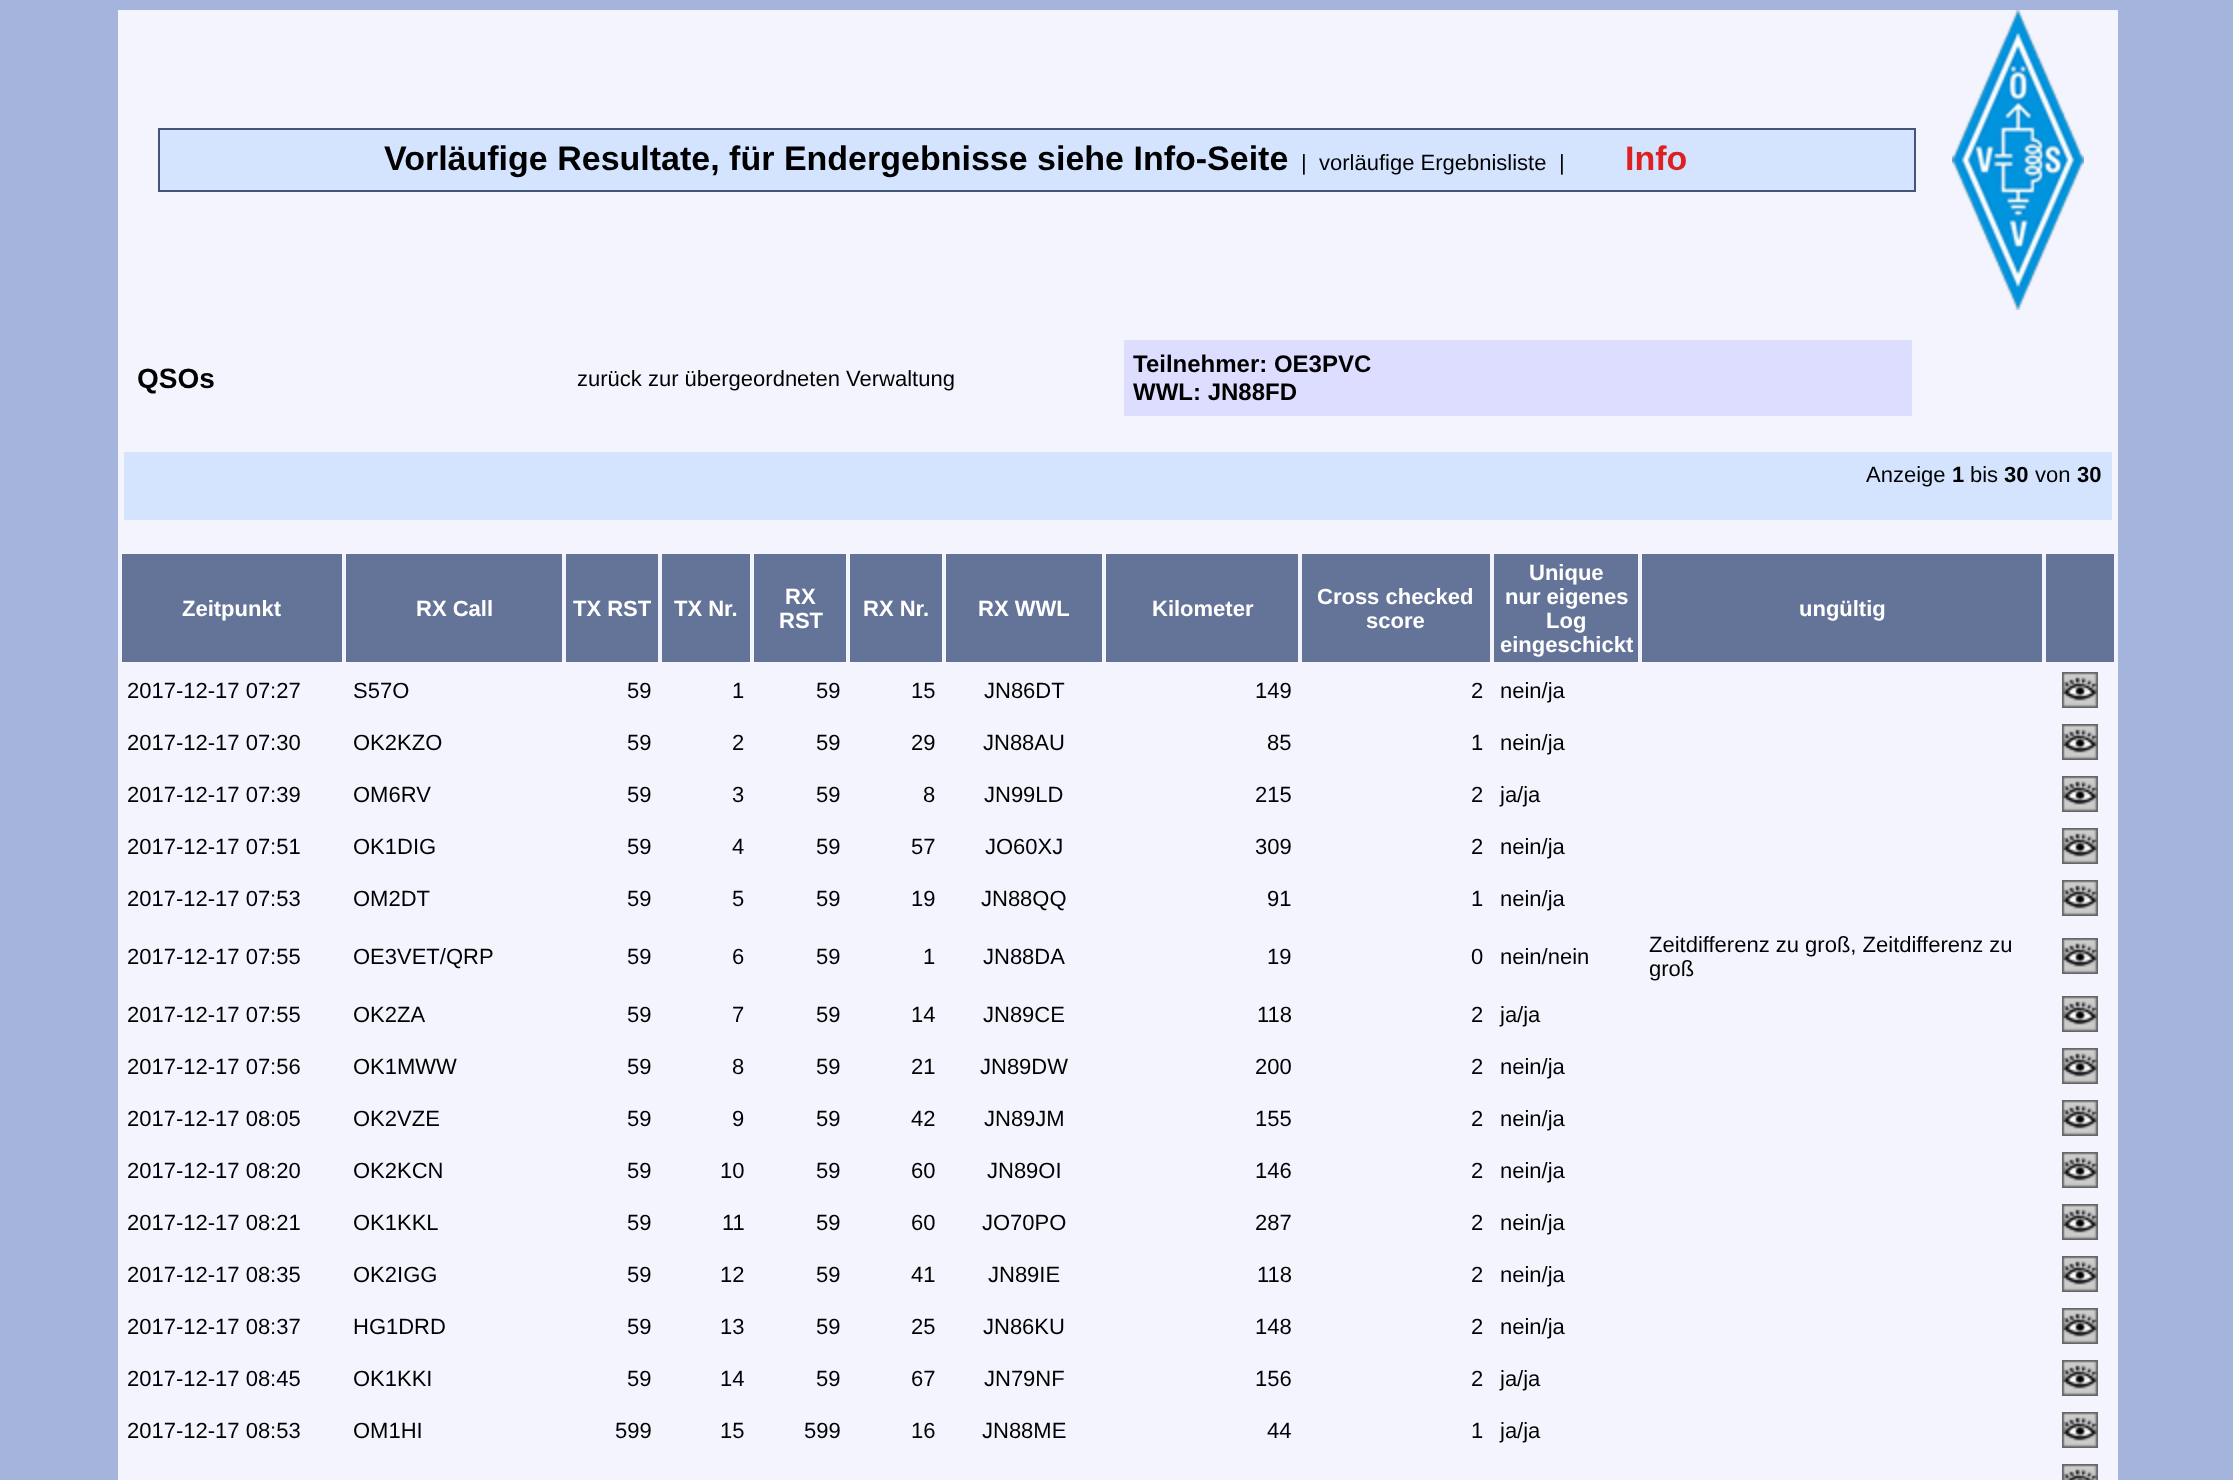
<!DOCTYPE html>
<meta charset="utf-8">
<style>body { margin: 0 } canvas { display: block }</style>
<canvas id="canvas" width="2233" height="1480"></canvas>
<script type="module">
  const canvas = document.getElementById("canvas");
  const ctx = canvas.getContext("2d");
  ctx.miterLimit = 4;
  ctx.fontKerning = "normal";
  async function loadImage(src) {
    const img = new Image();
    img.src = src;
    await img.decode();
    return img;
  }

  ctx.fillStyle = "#a4b4dd";
  ctx.fillRect(0, 0, 2233, 1480);
  ctx.fillStyle = "#f4f4ff";
  ctx.fillRect(118, 10, 2000, 1470);
  ctx.fillStyle = "#445577";
  ctx.fillRect(158, 128, 1758, 64);
  ctx.fillStyle = "#d4e4ff";
  ctx.fillRect(160, 130, 1754, 60);
  ctx.font = "bold 34px Liberation Sans";
  ctx.fillStyle = "#000000";
  ctx.fillText("Vorläufige Resultate, für Endergebnisse siehe Info-Seite", 384, 170);
  ctx.font = "22px Liberation Sans";
  ctx.fillText("|", 1301, 170);
  ctx.fillText("vorläufige Ergebnisliste", 1319, 170);
  ctx.fillText("|", 1559, 170);
  ctx.font = "bold 34px Liberation Sans";
  ctx.fillStyle = "#de2020";
  ctx.fillText("Info", 1625, 170);
  ctx.drawImage(await loadImage("img1.png"), 1952, 10, 132, 300);
  ctx.font = "bold 28px Liberation Sans";
  ctx.fillStyle = "#000000";
  ctx.fillText("QSOs", 137, 388);
  ctx.font = "22px Liberation Sans";
  ctx.fillText("zurück zur übergeordneten Verwaltung", 577, 386);
  ctx.fillStyle = "#ddddff";
  ctx.fillRect(1124, 340, 788, 76);
  ctx.font = "bold 24px Liberation Sans";
  ctx.fillStyle = "#000000";
  ctx.fillText("Teilnehmer: OE3PVC", 1133, 372);
  ctx.fillText("WWL: JN88FD", 1133, 400);
  ctx.fillStyle = "#d4e4ff";
  ctx.fillRect(124, 452, 1988, 68);
  ctx.font = "22px Liberation Sans";
  ctx.fillStyle = "#000000";
  ctx.fillText("Anzeige", 1866, 482);
  ctx.font = "bold 22px Liberation Sans";
  ctx.fillText("1", 1952, 482);
  ctx.font = "22px Liberation Sans";
  ctx.fillText("bis", 1970, 482);
  ctx.font = "bold 22px Liberation Sans";
  ctx.fillText("30", 2004, 482);
  ctx.font = "22px Liberation Sans";
  ctx.fillText("von", 2035, 482);
  ctx.font = "bold 22px Liberation Sans";
  ctx.fillText("30", 2077, 482);
  ctx.fillStyle = "#647499";
  ctx.fillRect(122, 554, 220, 108);
  ctx.fillStyle = "#ffffff";
  ctx.fillText("Zeitpunkt", 182, 616);
  ctx.fillStyle = "#647499";
  ctx.fillRect(346, 554, 216, 108);
  ctx.fillStyle = "#ffffff";
  ctx.fillText("RX Call", 416, 616);
  ctx.fillStyle = "#647499";
  ctx.fillRect(566, 554, 92, 108);
  ctx.fillStyle = "#ffffff";
  ctx.fillText("TX RST", 573, 616);
  ctx.fillStyle = "#647499";
  ctx.fillRect(662, 554, 88, 108);
  ctx.fillStyle = "#ffffff";
  ctx.fillText("TX Nr.", 674, 616);
  ctx.fillStyle = "#647499";
  ctx.fillRect(754, 554, 92, 108);
  ctx.fillStyle = "#ffffff";
  ctx.fillText("RX", 785, 604);
  ctx.fillText("RST", 779, 628);
  ctx.fillStyle = "#647499";
  ctx.fillRect(850, 554, 92, 108);
  ctx.fillStyle = "#ffffff";
  ctx.fillText("RX Nr.", 863, 616);
  ctx.fillStyle = "#647499";
  ctx.fillRect(946, 554, 156, 108);
  ctx.fillStyle = "#ffffff";
  ctx.fillText("RX WWL", 978, 616);
  ctx.fillStyle = "#647499";
  ctx.fillRect(1106, 554, 192, 108);
  ctx.fillStyle = "#ffffff";
  ctx.fillText("Kilometer", 1152, 616);
  ctx.fillStyle = "#647499";
  ctx.fillRect(1302, 554, 188, 108);
  ctx.fillStyle = "#ffffff";
  ctx.fillText("Cross checked", 1317, 604);
  ctx.fillText("score", 1366, 628);
  ctx.fillStyle = "#647499";
  ctx.fillRect(1494, 554, 144, 108);
  ctx.fillStyle = "#ffffff";
  ctx.fillText("Unique", 1529, 580);
  ctx.fillText("nur eigenes", 1505, 604);
  ctx.fillText("Log", 1546, 628);
  ctx.fillText("eingeschickt", 1500, 652);
  ctx.fillStyle = "#647499";
  ctx.fillRect(1642, 554, 400, 108);
  ctx.fillStyle = "#ffffff";
  ctx.fillText("ungültig", 1799, 616);
  ctx.fillStyle = "#647499";
  ctx.fillRect(2046, 554, 68, 108);
  ctx.font = "22px Liberation Sans";
  ctx.fillStyle = "#000000";
  ctx.fillText("2017-12-17 07:27", 127, 698);
  ctx.fillText("S57O", 353, 698);
  ctx.fillText("59", 627, 698);
  ctx.fillText("1", 732, 698);
  ctx.fillText("59", 816, 698);
  ctx.fillText("15", 911, 698);
  ctx.fillText("JN86DT", 984, 698);
  ctx.fillText("149", 1255, 698);
  ctx.fillText("2", 1471, 698);
  ctx.fillText("nein/ja", 1500, 698);
  ctx.drawImage(await loadImage("img2.png"), 2062, 672, 36, 36);
  ctx.fillText("2017-12-17 07:30", 127, 750);
  ctx.fillText("OK2KZO", 353, 750);
  ctx.fillText("59", 627, 750);
  ctx.fillText("2", 732, 750);
  ctx.fillText("59", 816, 750);
  ctx.fillText("29", 911, 750);
  ctx.fillText("JN88AU", 983, 750);
  ctx.fillText("85", 1267, 750);
  ctx.fillText("1", 1471, 750);
  ctx.fillText("nein/ja", 1500, 750);
  ctx.drawImage(await loadImage("img2.png"), 2062, 724, 36, 36);
  ctx.fillText("2017-12-17 07:39", 127, 802);
  ctx.fillText("OM6RV", 353, 802);
  ctx.fillText("59", 627, 802);
  ctx.fillText("3", 732, 802);
  ctx.fillText("59", 816, 802);
  ctx.fillText("8", 923, 802);
  ctx.fillText("JN99LD", 984, 802);
  ctx.fillText("215", 1255, 802);
  ctx.fillText("2", 1471, 802);
  ctx.fillText("ja/ja", 1500, 802);
  ctx.drawImage(await loadImage("img2.png"), 2062, 776, 36, 36);
  ctx.fillText("2017-12-17 07:51", 127, 854);
  ctx.fillText("OK1DIG", 353, 854);
  ctx.fillText("59", 627, 854);
  ctx.fillText("4", 732, 854);
  ctx.fillText("59", 816, 854);
  ctx.fillText("57", 911, 854);
  ctx.fillText("JO60XJ", 985, 854);
  ctx.fillText("309", 1255, 854);
  ctx.fillText("2", 1471, 854);
  ctx.fillText("nein/ja", 1500, 854);
  ctx.drawImage(await loadImage("img2.png"), 2062, 828, 36, 36);
  ctx.fillText("2017-12-17 07:53", 127, 906);
  ctx.fillText("OM2DT", 353, 906);
  ctx.fillText("59", 627, 906);
  ctx.fillText("5", 732, 906);
  ctx.fillText("59", 816, 906);
  ctx.fillText("19", 911, 906);
  ctx.fillText("JN88QQ", 981, 906);
  ctx.fillText("91", 1267, 906);
  ctx.fillText("1", 1471, 906);
  ctx.fillText("nein/ja", 1500, 906);
  ctx.drawImage(await loadImage("img2.png"), 2062, 880, 36, 36);
  ctx.fillText("2017-12-17 07:55", 127, 964);
  ctx.fillText("OE3VET/QRP", 353, 964);
  ctx.fillText("59", 627, 964);
  ctx.fillText("6", 732, 964);
  ctx.fillText("59", 816, 964);
  ctx.fillText("1", 923, 964);
  ctx.fillText("JN88DA", 983, 964);
  ctx.fillText("19", 1267, 964);
  ctx.fillText("0", 1471, 964);
  ctx.fillText("nein/nein", 1500, 964);
  ctx.fillText("Zeitdifferenz zu groß, Zeitdifferenz zu", 1649, 952);
  ctx.fillText("groß", 1649, 976);
  ctx.drawImage(await loadImage("img2.png"), 2062, 938, 36, 36);
  ctx.fillText("2017-12-17 07:55", 127, 1022);
  ctx.fillText("OK2ZA", 353, 1022);
  ctx.fillText("59", 627, 1022);
  ctx.fillText("7", 732, 1022);
  ctx.fillText("59", 816, 1022);
  ctx.fillText("14", 911, 1022);
  ctx.fillText("JN89CE", 983, 1022);
  ctx.fillText("118", 1257, 1022);
  ctx.fillText("2", 1471, 1022);
  ctx.fillText("ja/ja", 1500, 1022);
  ctx.drawImage(await loadImage("img2.png"), 2062, 996, 36, 36);
  ctx.fillText("2017-12-17 07:56", 127, 1074);
  ctx.fillText("OK1MWW", 353, 1074);
  ctx.fillText("59", 627, 1074);
  ctx.fillText("8", 732, 1074);
  ctx.fillText("59", 816, 1074);
  ctx.fillText("21", 911, 1074);
  ctx.fillText("JN89DW", 980, 1074);
  ctx.fillText("200", 1255, 1074);
  ctx.fillText("2", 1471, 1074);
  ctx.fillText("nein/ja", 1500, 1074);
  ctx.drawImage(await loadImage("img2.png"), 2062, 1048, 36, 36);
  ctx.fillText("2017-12-17 08:05", 127, 1126);
  ctx.fillText("OK2VZE", 353, 1126);
  ctx.fillText("59", 627, 1126);
  ctx.fillText("9", 732, 1126);
  ctx.fillText("59", 816, 1126);
  ctx.fillText("42", 911, 1126);
  ctx.fillText("JN89JM", 984, 1126);
  ctx.fillText("155", 1255, 1126);
  ctx.fillText("2", 1471, 1126);
  ctx.fillText("nein/ja", 1500, 1126);
  ctx.drawImage(await loadImage("img2.png"), 2062, 1100, 36, 36);
  ctx.fillText("2017-12-17 08:20", 127, 1178);
  ctx.fillText("OK2KCN", 353, 1178);
  ctx.fillText("59", 627, 1178);
  ctx.fillText("10", 720, 1178);
  ctx.fillText("59", 816, 1178);
  ctx.fillText("60", 911, 1178);
  ctx.fillText("JN89OI", 987, 1178);
  ctx.fillText("146", 1255, 1178);
  ctx.fillText("2", 1471, 1178);
  ctx.fillText("nein/ja", 1500, 1178);
  ctx.drawImage(await loadImage("img2.png"), 2062, 1152, 36, 36);
  ctx.fillText("2017-12-17 08:21", 127, 1230);
  ctx.fillText("OK1KKL", 353, 1230);
  ctx.fillText("59", 627, 1230);
  ctx.fillText("11", 722, 1230);
  ctx.fillText("59", 816, 1230);
  ctx.fillText("60", 911, 1230);
  ctx.fillText("JO70PO", 982, 1230);
  ctx.fillText("287", 1255, 1230);
  ctx.fillText("2", 1471, 1230);
  ctx.fillText("nein/ja", 1500, 1230);
  ctx.drawImage(await loadImage("img2.png"), 2062, 1204, 36, 36);
  ctx.fillText("2017-12-17 08:35", 127, 1282);
  ctx.fillText("OK2IGG", 353, 1282);
  ctx.fillText("59", 627, 1282);
  ctx.fillText("12", 720, 1282);
  ctx.fillText("59", 816, 1282);
  ctx.fillText("41", 911, 1282);
  ctx.fillText("JN89IE", 988, 1282);
  ctx.fillText("118", 1257, 1282);
  ctx.fillText("2", 1471, 1282);
  ctx.fillText("nein/ja", 1500, 1282);
  ctx.drawImage(await loadImage("img2.png"), 2062, 1256, 36, 36);
  ctx.fillText("2017-12-17 08:37", 127, 1334);
  ctx.fillText("HG1DRD", 353, 1334);
  ctx.fillText("59", 627, 1334);
  ctx.fillText("13", 720, 1334);
  ctx.fillText("59", 816, 1334);
  ctx.fillText("25", 911, 1334);
  ctx.fillText("JN86KU", 983, 1334);
  ctx.fillText("148", 1255, 1334);
  ctx.fillText("2", 1471, 1334);
  ctx.fillText("nein/ja", 1500, 1334);
  ctx.drawImage(await loadImage("img2.png"), 2062, 1308, 36, 36);
  ctx.fillText("2017-12-17 08:45", 127, 1386);
  ctx.fillText("OK1KKI", 353, 1386);
  ctx.fillText("59", 627, 1386);
  ctx.fillText("14", 720, 1386);
  ctx.fillText("59", 816, 1386);
  ctx.fillText("67", 911, 1386);
  ctx.fillText("JN79NF", 984, 1386);
  ctx.fillText("156", 1255, 1386);
  ctx.fillText("2", 1471, 1386);
  ctx.fillText("ja/ja", 1500, 1386);
  ctx.drawImage(await loadImage("img2.png"), 2062, 1360, 36, 36);
  ctx.fillText("2017-12-17 08:53", 127, 1438);
  ctx.fillText("OM1HI", 353, 1438);
  ctx.fillText("599", 615, 1438);
  ctx.fillText("15", 720, 1438);
  ctx.fillText("599", 804, 1438);
  ctx.fillText("16", 911, 1438);
  ctx.fillText("JN88ME", 982, 1438);
  ctx.fillText("44", 1267, 1438);
  ctx.fillText("1", 1471, 1438);
  ctx.fillText("ja/ja", 1500, 1438);
  ctx.drawImage(await loadImage("img2.png"), 2062, 1412, 36, 36);
  ctx.drawImage(await loadImage("img3.png"), 2062, 1464, 36, 16);
</script>
